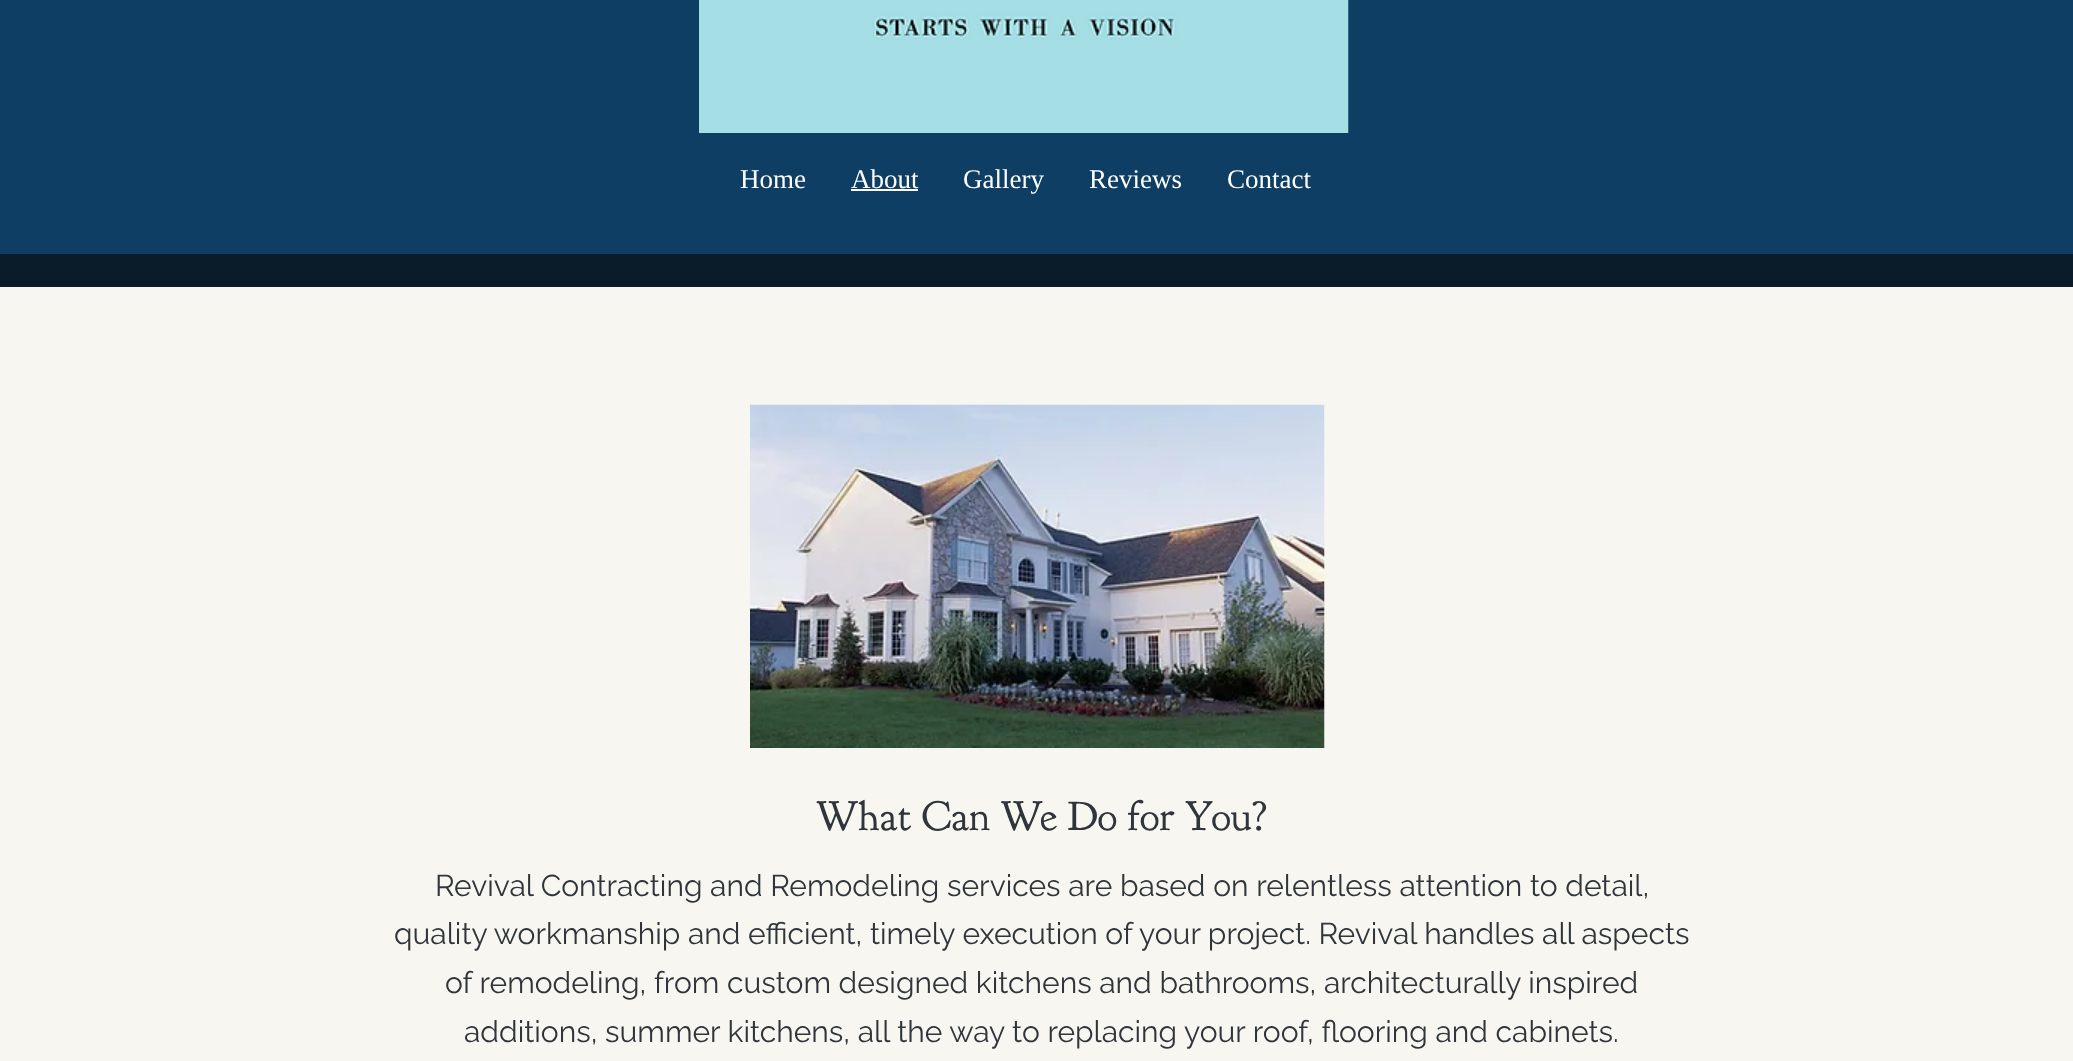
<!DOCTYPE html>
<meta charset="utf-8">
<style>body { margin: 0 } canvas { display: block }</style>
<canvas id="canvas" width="2073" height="1061"></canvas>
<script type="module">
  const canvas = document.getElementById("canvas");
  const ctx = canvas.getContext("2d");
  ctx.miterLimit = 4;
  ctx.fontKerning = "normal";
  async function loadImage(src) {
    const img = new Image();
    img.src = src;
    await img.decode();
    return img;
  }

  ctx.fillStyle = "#0a1b29";
  ctx.fillRect(0, 0, 2073, 1061);
  ctx.fillStyle = "#0e3e63";
  ctx.fillRect(0, 0, 2073, 254);
  ctx.drawImage(await loadImage("img1.png"), 699, 0, 650, 133);
  ctx.font = "27px Liberation Serif";
  ctx.fillStyle = "#ffffff";
  ctx.fillText("Home", 740, 188);
  ctx.fillText("About", 851, 188);
  ctx.fillRect(851, 189, 67, 2);
  ctx.fillText("Gallery", 963, 188);
  ctx.fillText("Reviews", 1089, 188);
  ctx.fillText("Contact", 1227, 188);
  ctx.fillStyle = "#f7f6f0";
  ctx.fillRect(0, 287, 2073, 774);
  ctx.drawImage(await loadImage("img2.png"), 750, 404, 575, 344);
  ctx.font = "42px 'Goudy Bookletter 1911'";
  ctx.fillStyle = "#2f353a";
  ctx.fillText("What Can We Do for You?", 816, 830);
  ctx.font = "30px Raleway";
  ctx.fillText("Revival Contracting and Remodeling services are based on relentless attention to detail,", 435, 896);
  ctx.fillText("quality workmanship and efficient, timely execution of your project. Revival handles all aspects", 394, 944);
  ctx.fillText("of remodeling, from custom designed kitchens and bathrooms, architecturally inspired", 445, 993);
  ctx.fillText("additions, summer kitchens, all the way to replacing your roof, flooring and cabinets.", 464, 1042);
</script>
